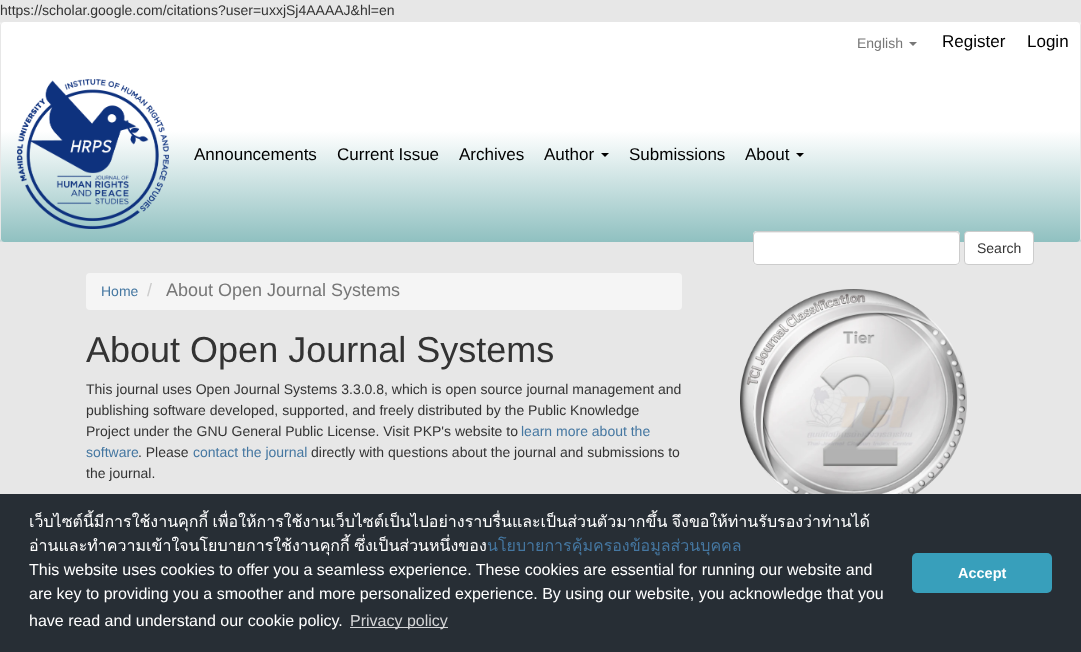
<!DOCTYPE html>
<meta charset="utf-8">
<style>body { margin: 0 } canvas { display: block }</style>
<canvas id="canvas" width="1081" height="652"></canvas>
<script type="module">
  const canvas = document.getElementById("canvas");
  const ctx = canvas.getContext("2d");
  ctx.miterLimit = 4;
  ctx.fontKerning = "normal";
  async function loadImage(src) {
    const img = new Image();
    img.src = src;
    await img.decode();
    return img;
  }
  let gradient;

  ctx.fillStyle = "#ffffff";
  ctx.fillRect(0, 0, 1081, 652);
  gradient = ctx.createLinearGradient(541, 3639, 541, 0);
  gradient.addColorStop(0, "#ffffff");
  gradient.addColorStop(0.67, "#e7e7e7");
  ctx.fillStyle = gradient;
  ctx.fillRect(0, 0, 1081, 494);
  ctx.font = "14px Liberation Sans";
  ctx.fillStyle = "#333333";
  ctx.fillText("https://scholar.google.com/citations?user=uxxjSj4AAAAJ&hl=en", 0, 15);
  ctx.save();
  ctx.beginPath();
  ctx.roundRect(0, 21, 1081, 222, 4);
  ctx.clip();
  gradient = ctx.createLinearGradient(541, 352, 541, 22);
  gradient.addColorStop(0, "#218282");
  gradient.addColorStop(0.67, "#ffffff");
  ctx.fillStyle = gradient;
  ctx.fillRect(0, 22, 1081, 220);
  ctx.restore();
  ctx.beginPath();
  ctx.roundRect(0.5, 21.5, 1080, 221, 3.5);
  ctx.strokeStyle = "#e7e7e7";
  ctx.stroke();
  ctx.fillStyle = "#777777";
  ctx.fillText("English", 857, 48);
  ctx.beginPath();
  ctx.moveTo(909, 42);
  ctx.lineTo(917, 42);
  ctx.lineTo(913, 46);
  ctx.closePath();
  ctx.fill();
  ctx.font = "17px Liberation Sans";
  ctx.fillStyle = "#000000";
  ctx.fillText("Register", 942, 47);
  ctx.fillText("Login", 1027, 47);
  ctx.drawImage(await loadImage("img1.png"), 17, 79, 152, 150);
  ctx.fillText("Announcements", 194, 160);
  ctx.fillText("Current Issue", 337, 160);
  ctx.fillText("Archives", 459, 160);
  ctx.fillText("Author", 544, 160);
  ctx.beginPath();
  ctx.moveTo(601, 153);
  ctx.lineTo(609, 153);
  ctx.lineTo(605, 157);
  ctx.closePath();
  ctx.fill();
  ctx.fillText("Submissions", 629, 160);
  ctx.fillText("About", 745, 160);
  ctx.beginPath();
  ctx.moveTo(796, 153);
  ctx.lineTo(804, 153);
  ctx.lineTo(800, 157);
  ctx.closePath();
  ctx.fill();
  ctx.fillStyle = "#ffffff";
  ctx.beginPath();
  ctx.roundRect(753, 231, 207, 34, 4);
  ctx.fill();
  ctx.fillStyle = "#ececec";
  ctx.beginPath();
  ctx.moveTo(757, 233);
  ctx.lineTo(956, 233);
  ctx.bezierCurveTo(958, 233, 959, 234, 959, 236);
  ctx.bezierCurveTo(959, 234, 958, 232, 956, 232);
  ctx.lineTo(757, 232);
  ctx.bezierCurveTo(755, 232, 754, 234, 754, 236);
  ctx.bezierCurveTo(754, 234, 755, 233, 757, 233);
  ctx.closePath();
  ctx.fill();
  ctx.beginPath();
  ctx.roundRect(753.5, 231.5, 206, 33, 3.5);
  ctx.strokeStyle = "#cccccc";
  ctx.stroke();
  ctx.fillStyle = "#ffffff";
  ctx.beginPath();
  ctx.roundRect(964.5, 231.5, 69, 33, 3.5);
  ctx.fill();
  ctx.stroke();
  ctx.font = "14px Liberation Sans";
  ctx.fillStyle = "#333333";
  ctx.fillText("Search", 977, 253);
  ctx.fillStyle = "#f5f5f5";
  ctx.beginPath();
  ctx.roundRect(86, 273, 596, 37, 4);
  ctx.fill();
  ctx.fillStyle = "#4577a1";
  ctx.fillText("Home", 101, 296);
  ctx.font = "18px Liberation Sans";
  ctx.fillStyle = "#cccccc";
  ctx.fillText("/", 147, 296);
  ctx.fillStyle = "#777777";
  ctx.fillText("About Open Journal Systems", 166, 296);
  ctx.font = "36px Liberation Sans";
  ctx.fillStyle = "#333333";
  ctx.fillText("About Open Journal Systems", 86, 362);
  ctx.font = "14px Liberation Sans";
  ctx.fillText("This journal uses Open Journal Systems 3.3.0.8, which is open source journal management and", 86, 394);
  ctx.fillText("publishing software developed, supported, and freely distributed by the Public Knowledge", 86, 415);
  ctx.fillText("Project under the GNU General Public License. Visit PKP's website to", 86, 436);
  ctx.fillStyle = "#4577a1";
  ctx.fillText("learn more about the", 521, 436);
  ctx.fillText("software", 86, 457);
  ctx.fillStyle = "#333333";
  ctx.fillText(". Please", 138, 457);
  ctx.fillStyle = "#4577a1";
  ctx.fillText("contact the journal", 193, 457);
  ctx.fillStyle = "#333333";
  ctx.fillText("directly with questions about the journal and submissions to", 311, 457);
  ctx.fillText("the journal.", 86, 478);
  ctx.drawImage(await loadImage("img2.png"), 740, 289, 227, 205);
  ctx.fillStyle = "#272e35";
  ctx.fillRect(0, 494, 1081, 158);
  ctx.wordSpacing = "-1px";
  ctx.font = "16px Loma";
  ctx.fillStyle = "#ffffff";
  ctx.fillText("เว็บไซต์นี้มีการใช้งานคุกกี้ เพื่อให้การใช้งานเว็บไซต์เป็นไปอย่างราบรื่นและเป็นส่วนตัวมากขึ้น จึงขอให้ท่านรับรองว่าท่านได้", 29, 527);
  ctx.fillText("อ่านและทำความเข้าใจนโยบายการใช้งานคุกกี้ ซึ่งเป็นส่วนหนึ่งของ", 29, 551);
  ctx.wordSpacing = "0px";
  ctx.fillStyle = "#4577a1";
  ctx.fillText("นโยบายการคุ้มครองข้อมูลส่วนบุคคล", 487, 551);
  ctx.font = "16px Liberation Sans";
  ctx.fillStyle = "#ffffff";
  ctx.fillText("This website uses cookies to offer you a seamless experience. These cookies are essential for running our website and", 29, 575);
  ctx.fillText("are key to providing you a smoother and more personalized experience. By using our website, you acknowledge that you", 29, 599);
  ctx.fillText("have read and understand our cookie policy.", 29, 626);
  ctx.fillStyle = "#d4d5d7";
  ctx.fillRect(350, 627, 98, 1);
  ctx.fillText("Privacy policy", 350, 626);
  ctx.fillStyle = "#389fbb";
  ctx.beginPath();
  ctx.roundRect(912, 553, 140, 40, 5);
  ctx.fill();
  ctx.font = "bold 14.5px Liberation Sans";
  ctx.fillStyle = "#ffffff";
  ctx.fillText("Accept", 958, 578);
</script>
